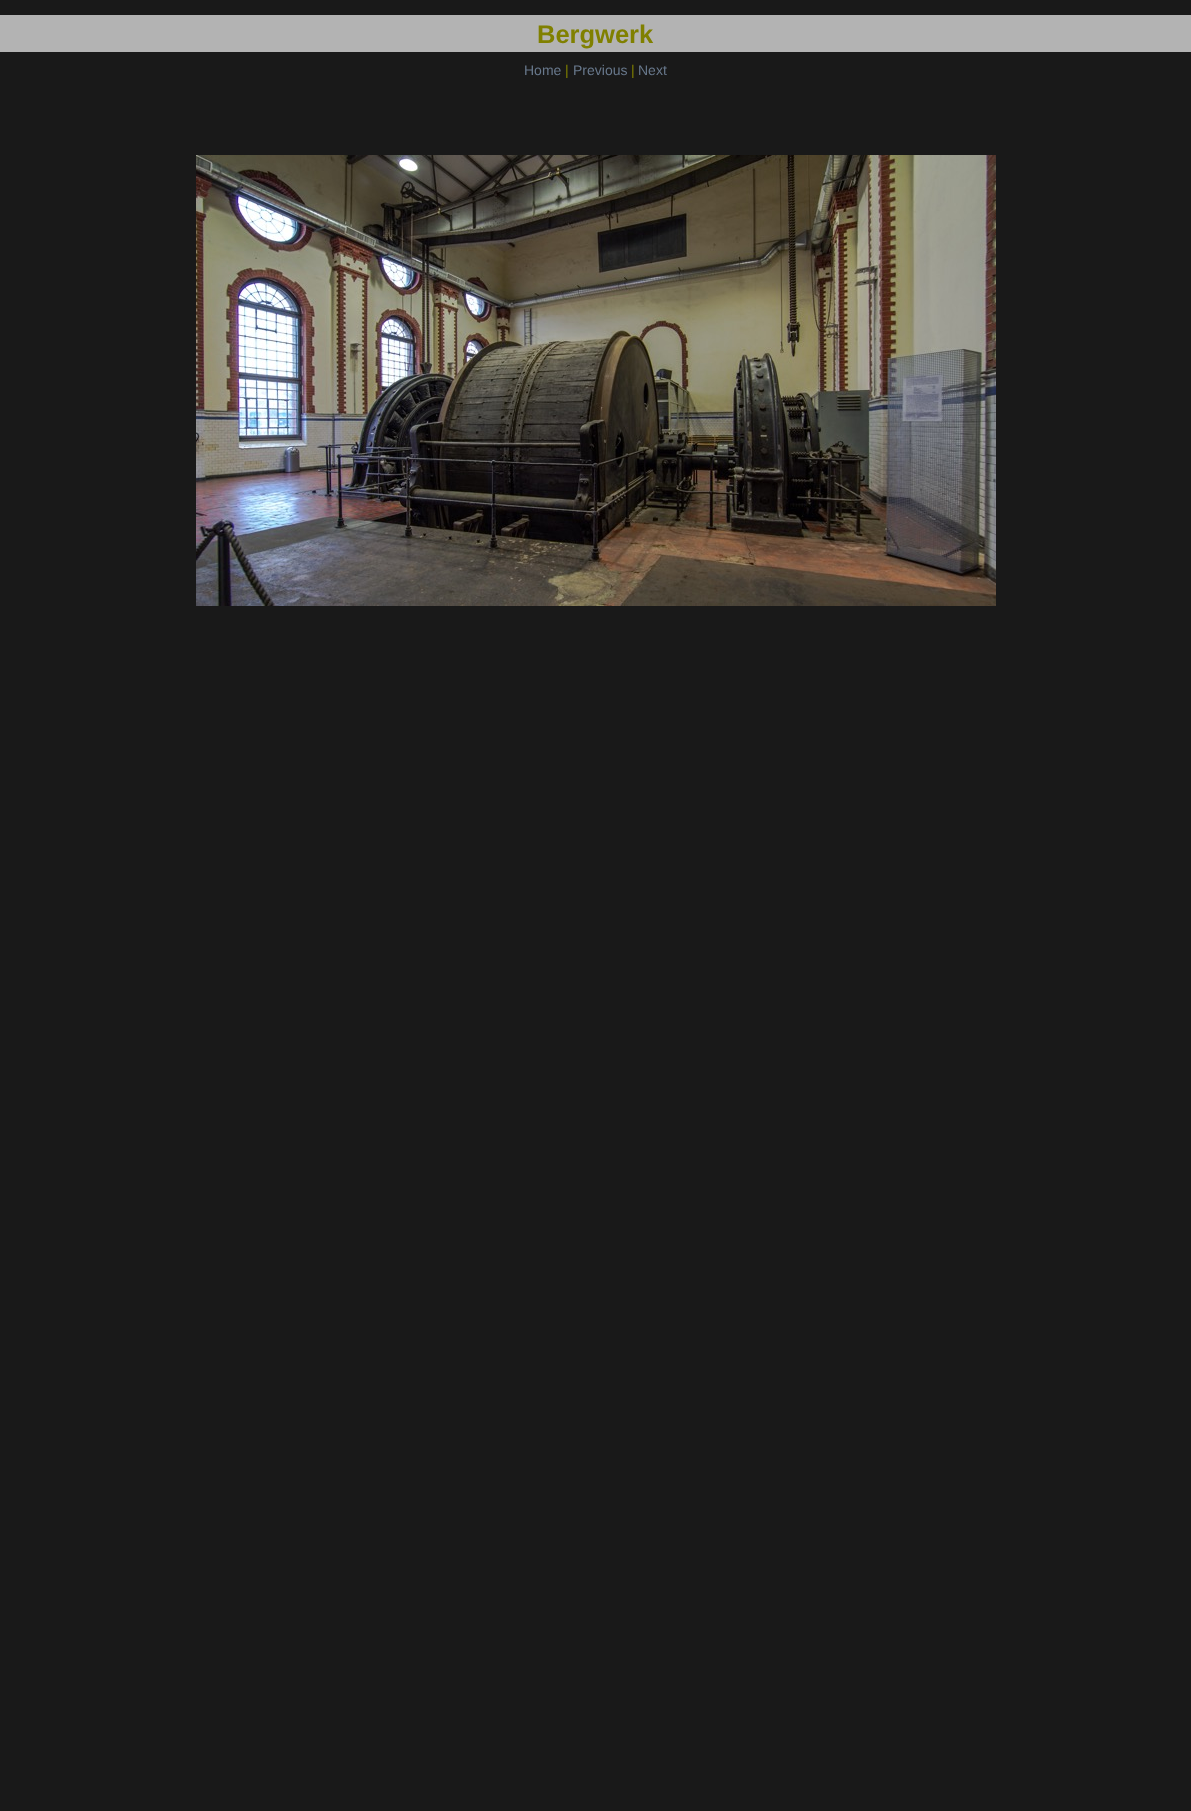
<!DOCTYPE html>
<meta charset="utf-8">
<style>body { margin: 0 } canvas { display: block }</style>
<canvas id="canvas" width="1191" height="1811"></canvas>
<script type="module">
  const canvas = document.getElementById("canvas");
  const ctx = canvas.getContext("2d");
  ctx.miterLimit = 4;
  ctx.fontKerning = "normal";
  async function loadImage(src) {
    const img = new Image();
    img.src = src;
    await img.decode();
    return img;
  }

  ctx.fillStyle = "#191919";
  ctx.fillRect(0, 0, 1191, 1811);
  ctx.fillStyle = "#b3b3b3";
  ctx.fillRect(0, 15, 1191, 37);
  ctx.font = "bold 25.5px Liberation Sans";
  ctx.fillStyle = "#808000";
  ctx.fillText("Bergwerk", 537, 43);
  ctx.font = "14px Liberation Sans";
  ctx.fillStyle = "#68788c";
  ctx.fillText("Home", 524, 75);
  ctx.fillStyle = "#808000";
  ctx.fillText("|", 565, 75);
  ctx.fillStyle = "#68788c";
  ctx.fillText("Previous", 573, 75);
  ctx.fillStyle = "#808000";
  ctx.fillText("|", 631, 75);
  ctx.fillStyle = "#68788c";
  ctx.fillText("Next", 638, 75);
  ctx.drawImage(await loadImage("img1.png"), 196, 155, 800, 451);
</script>
